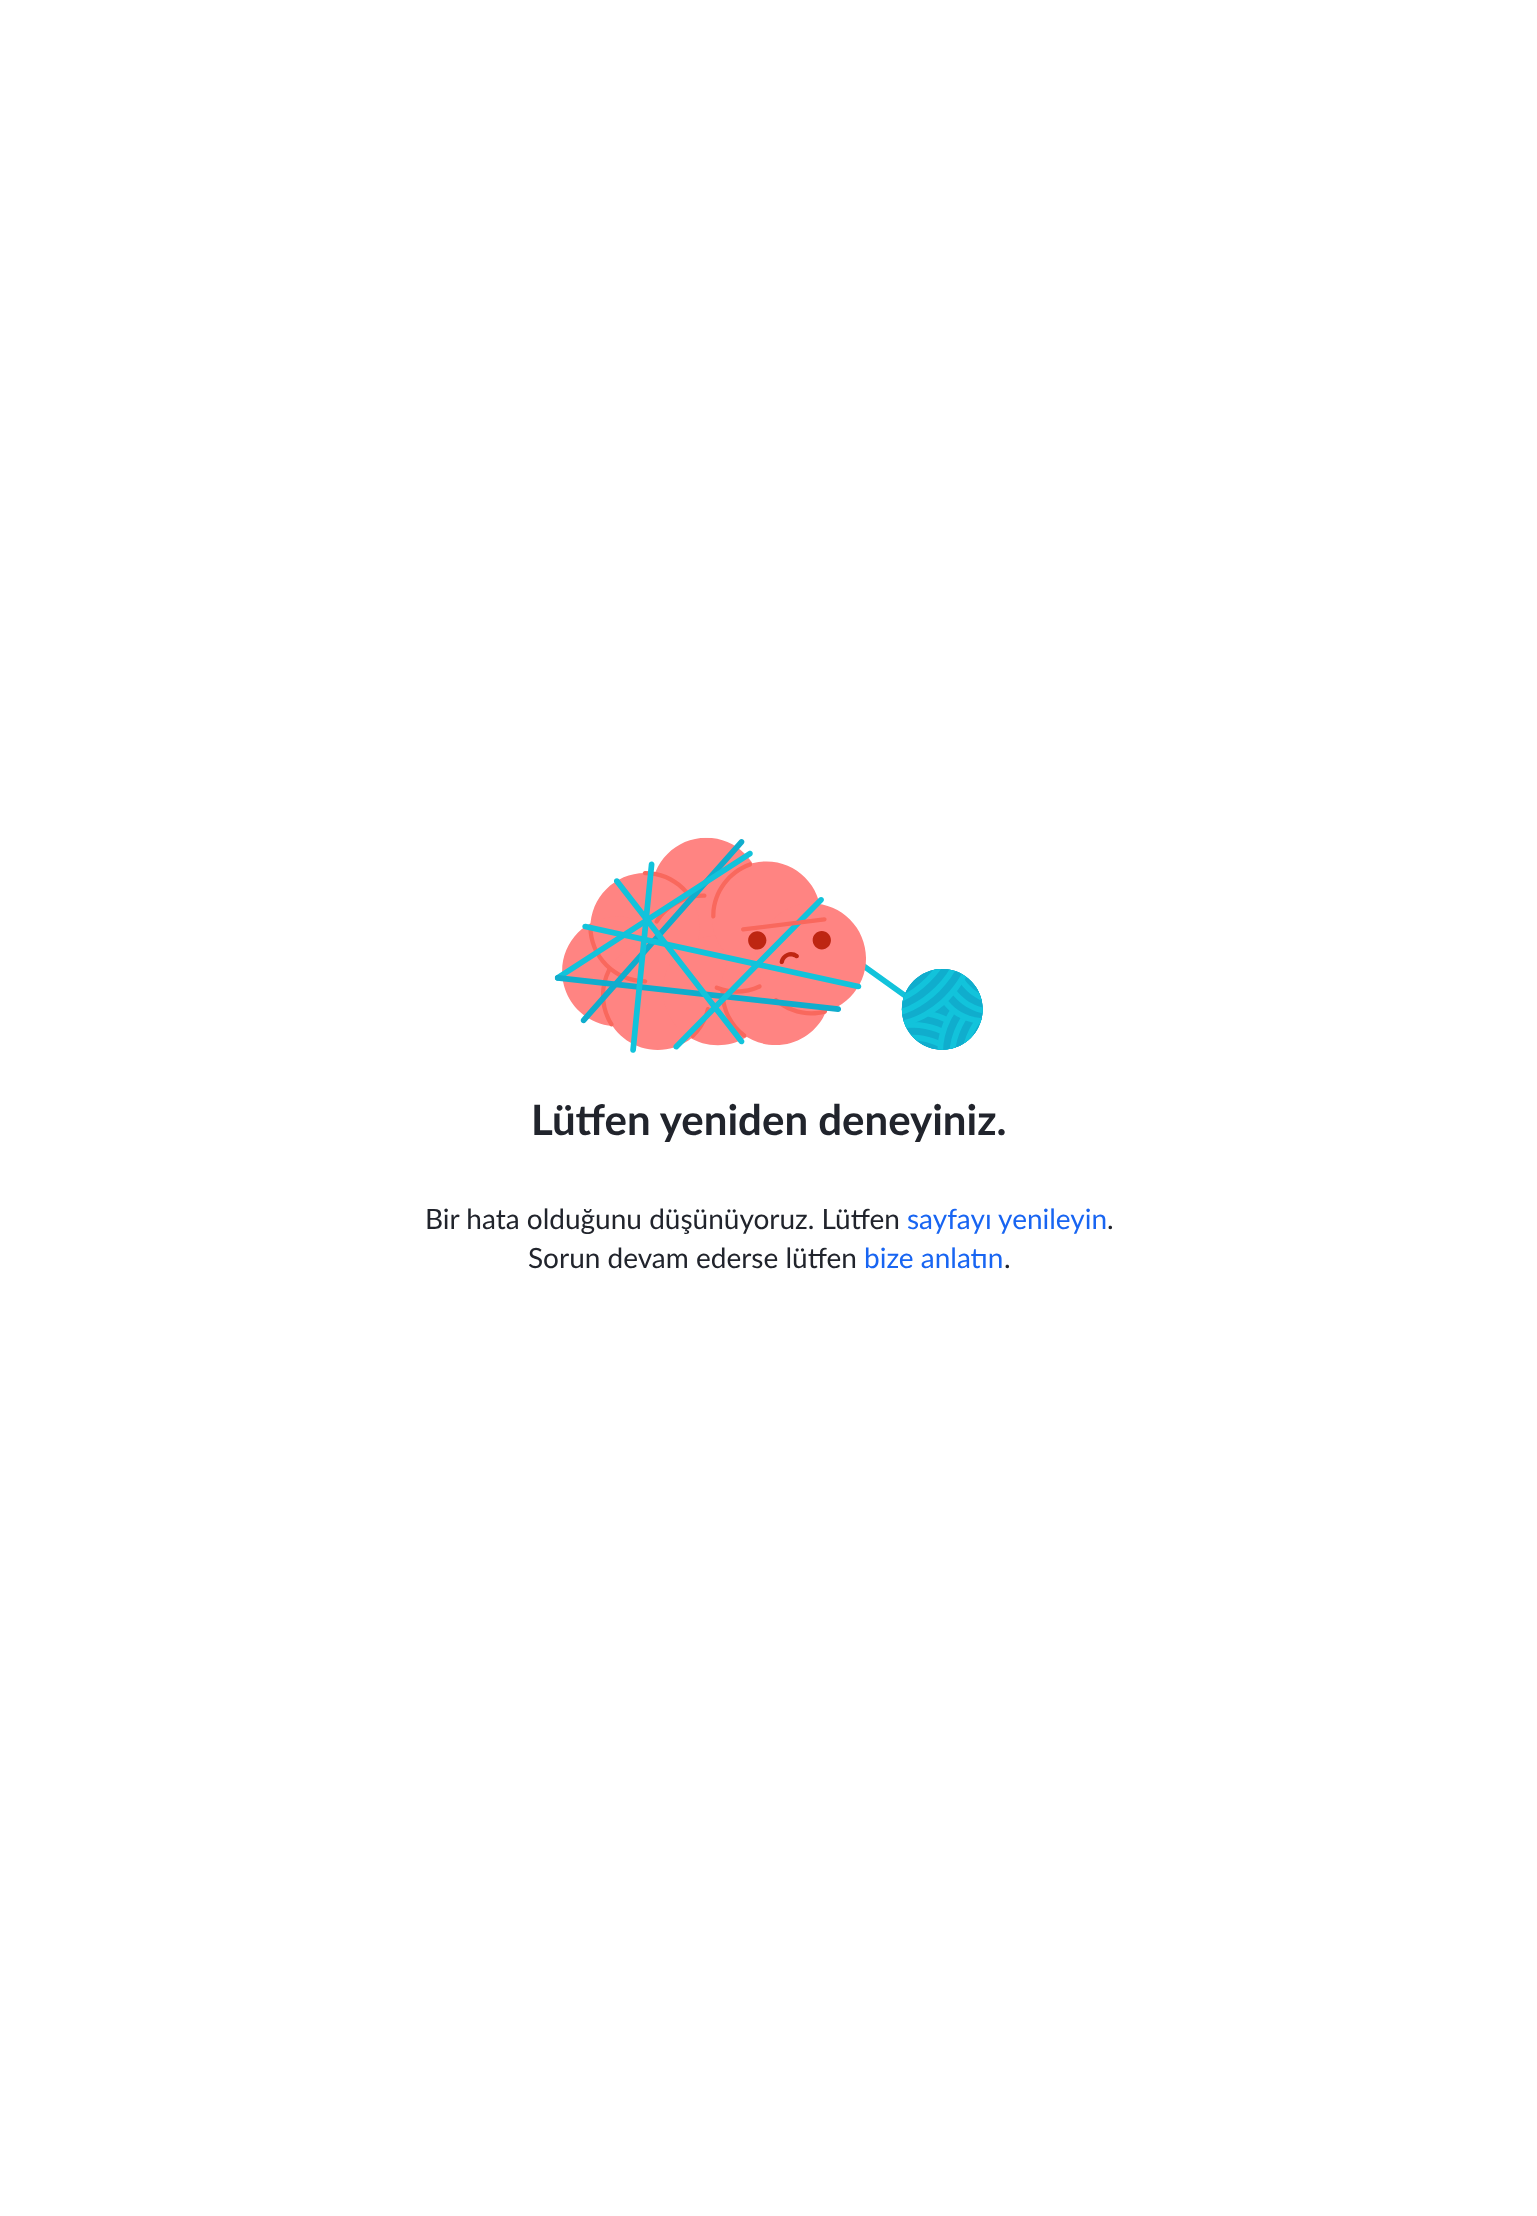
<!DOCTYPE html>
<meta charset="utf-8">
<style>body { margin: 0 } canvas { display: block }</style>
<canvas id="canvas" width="1537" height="2216"></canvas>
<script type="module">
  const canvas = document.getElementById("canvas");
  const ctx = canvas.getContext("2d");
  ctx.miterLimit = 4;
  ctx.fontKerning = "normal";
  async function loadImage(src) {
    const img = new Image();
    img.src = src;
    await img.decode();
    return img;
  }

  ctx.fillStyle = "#ffffff";
  ctx.fillRect(0, 0, 1537, 2216);
  ctx.drawImage(await loadImage("img1.png"), 554, 837, 429, 216);
  ctx.font = "bold 42px Lato";
  ctx.fillStyle = "#21242c";
  ctx.fillText("Lütfen yeniden deneyiniz.", 531, 1135);
  ctx.font = "28px Lato";
  ctx.fillText("Bir hata olduğunu düşünüyoruz. Lütfen", 425, 1229);
  ctx.fillStyle = "#1865f2";
  ctx.fillText("sayfayı yenileyin", 907, 1229);
  ctx.fillStyle = "#21242c";
  ctx.fillText(".", 1107, 1229);
  ctx.fillText("Sorun devam ederse lütfen", 528, 1268);
  ctx.fillStyle = "#1865f2";
  ctx.fillText("bize anlatın", 864, 1268);
  ctx.fillStyle = "#21242c";
  ctx.fillText(".", 1004, 1268);
</script>
